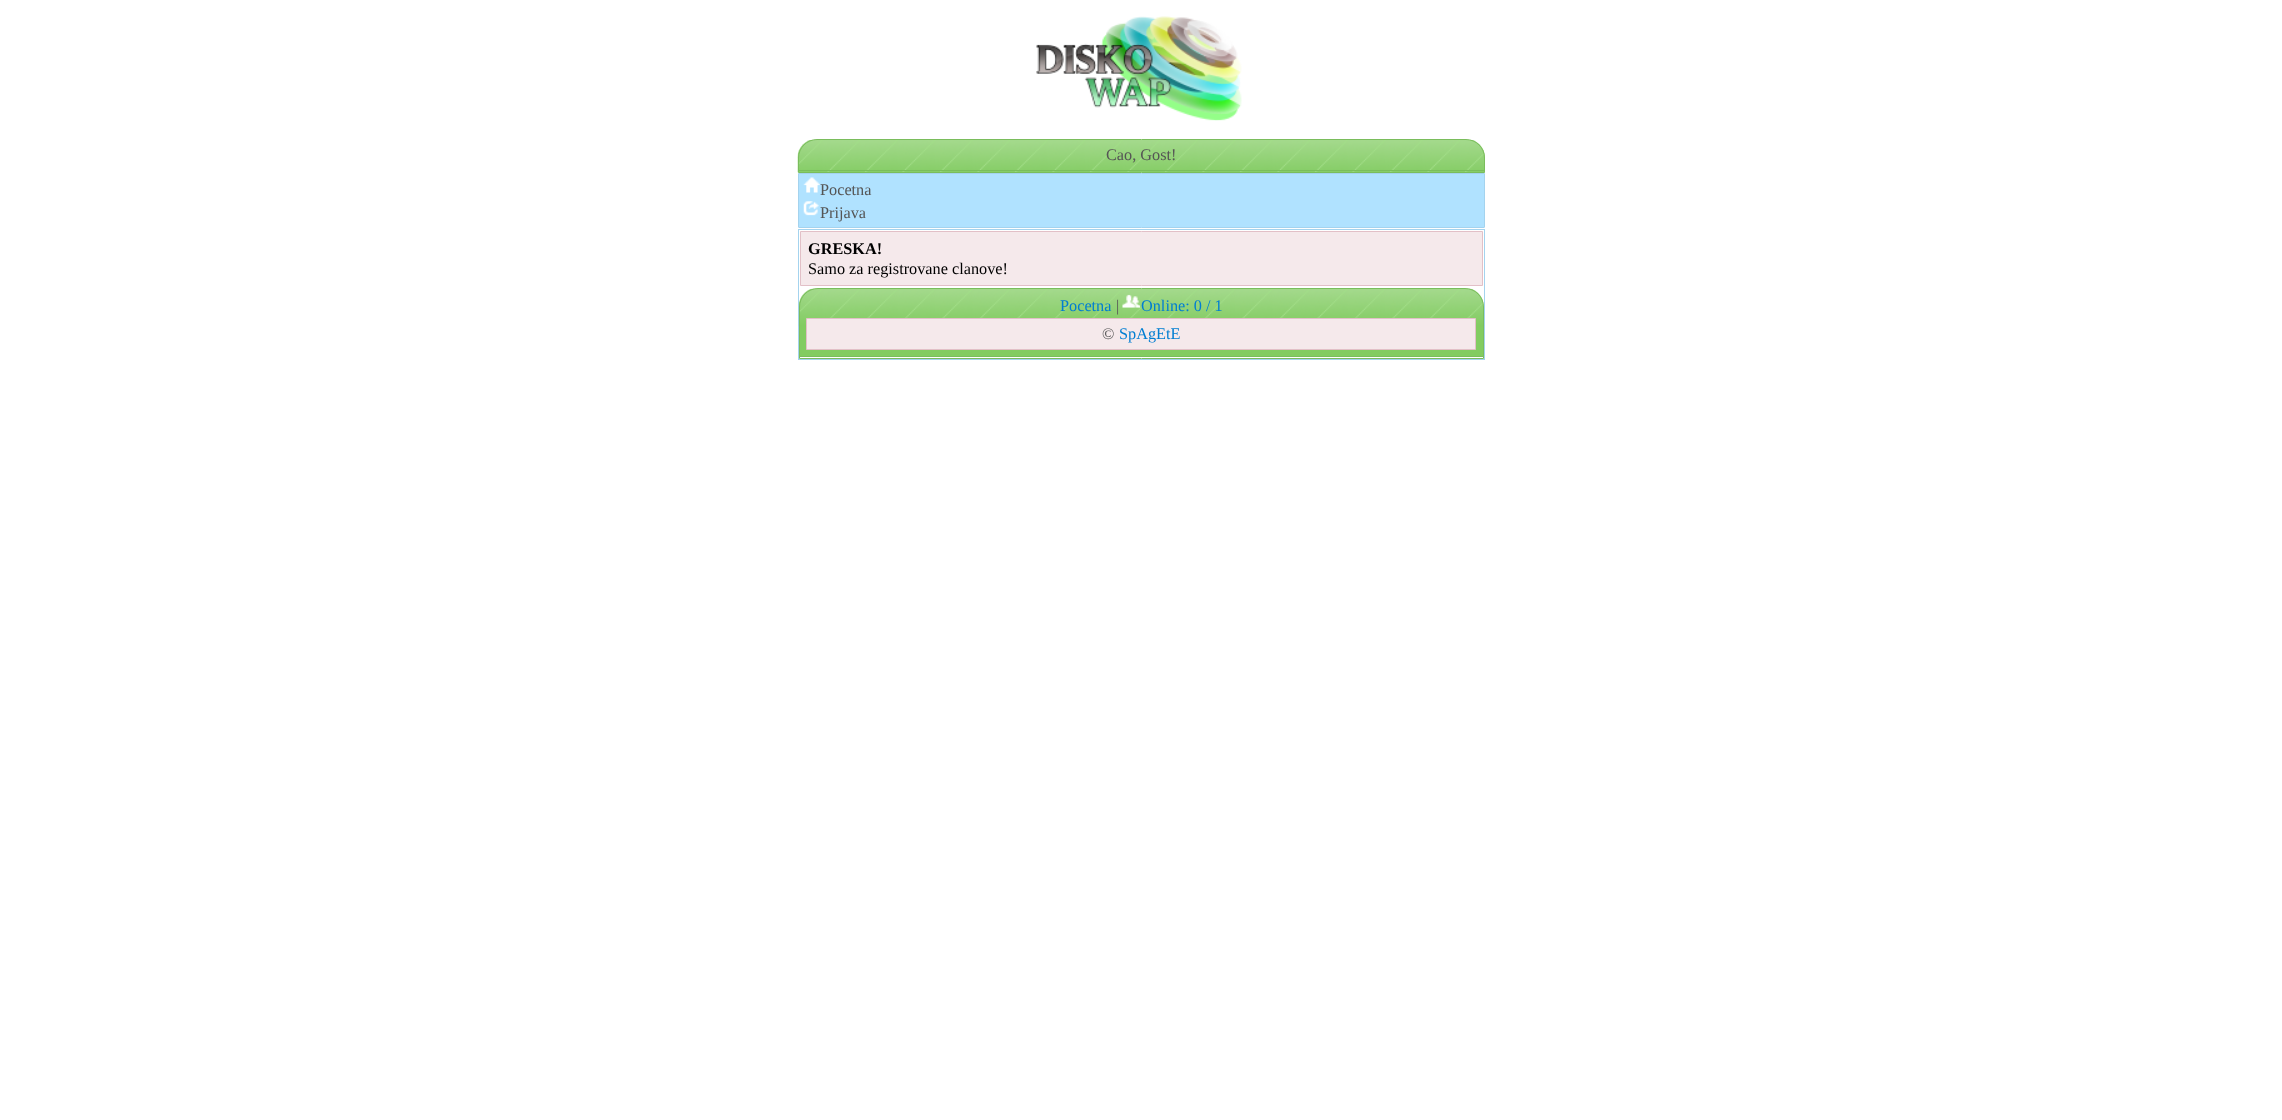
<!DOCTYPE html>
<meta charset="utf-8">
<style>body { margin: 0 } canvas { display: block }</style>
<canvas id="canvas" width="2282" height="1120"></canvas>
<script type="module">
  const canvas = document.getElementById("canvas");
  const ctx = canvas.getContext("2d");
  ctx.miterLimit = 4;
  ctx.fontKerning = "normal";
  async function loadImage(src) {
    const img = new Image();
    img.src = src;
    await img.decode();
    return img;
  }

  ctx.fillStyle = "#ffffff";
  ctx.fillRect(0, 0, 2282, 1120);
  ctx.drawImage(await loadImage("img1.png"), 1036, 16, 206, 105);
  ctx.drawImage(await loadImage("img2.png"), 797, 140, 688, 33);
  ctx.beginPath();
  ctx.roundRect(798.5, 139.5, 686, 33, [18.5, 18.5, 0, 0]);
  ctx.strokeStyle = "#7abd5c";
  ctx.stroke();
  ctx.fillStyle = "#7abd5c";
  ctx.fillRect(798, 170, 687, 1);
  ctx.font = "16.25px Liberation Serif";
  ctx.fillStyle = "#555555";
  ctx.fillText("Cao, Gost!", 1106, 160);
  ctx.fillStyle = "#b0e2ff";
  ctx.beginPath();
  ctx.roundRect(798.5, 173.5, 686, 54, [0, 0, 0.5, 0.5]);
  ctx.fill();
  ctx.strokeStyle = "#a4d3ee";
  ctx.stroke();
  ctx.drawImage(await loadImage("img3.png"), 803, 177, 17, 16);
  ctx.fillStyle = "#555555";
  ctx.fillText("Pocetna", 820, 195);
  ctx.drawImage(await loadImage("img4.png"), 803, 201, 16, 15);
  ctx.fillText("Prijava", 820, 218);
  ctx.strokeRect(798.5, 229.5, 686, 130);
  ctx.fillStyle = "#f5e9eb";
  ctx.beginPath();
  ctx.rect(800.5, 231.5, 682, 54);
  ctx.fill();
  ctx.strokeStyle = "#e2c0c7";
  ctx.stroke();
  ctx.font = "bold 16.25px Liberation Serif";
  ctx.fillStyle = "#000000";
  ctx.fillText("GRESKA!", 808, 254);
  ctx.font = "16.25px Liberation Serif";
  ctx.fillText("Samo za registrovane clanove!", 808, 274);
  ctx.fillStyle = "#82cc61";
  ctx.beginPath();
  ctx.roundRect(800, 289, 683, 67, [18, 18, 0, 0]);
  ctx.fill();
  ctx.drawImage(await loadImage("img5.png"), 798, 288, 686, 39);
  ctx.beginPath();
  ctx.roundRect(799.5, 288.5, 684, 70, [18.5, 18.5, 0, 0]);
  ctx.strokeStyle = "#7abd5c";
  ctx.stroke();
  ctx.fillStyle = "#7abd5c";
  ctx.fillRect(799, 356, 685, 1);
  ctx.fillStyle = "#007ed2";
  ctx.fillText("Pocetna", 1060, 311);
  ctx.fillStyle = "#555555";
  ctx.fillText("|", 1116, 311);
  ctx.drawImage(await loadImage("img6.png"), 1122, 294, 18, 14);
  ctx.fillStyle = "#007ed2";
  ctx.fillText("Online: 0 / 1", 1141, 311);
  ctx.fillStyle = "#f5e9eb";
  ctx.beginPath();
  ctx.rect(806.5, 318.5, 669, 31);
  ctx.fill();
  ctx.strokeStyle = "#e2c0c7";
  ctx.stroke();
  ctx.fillStyle = "#555555";
  ctx.fillText("©", 1102, 339);
  ctx.fillStyle = "#007ed2";
  ctx.fillText("SpAgEtE", 1119, 339);
</script>
